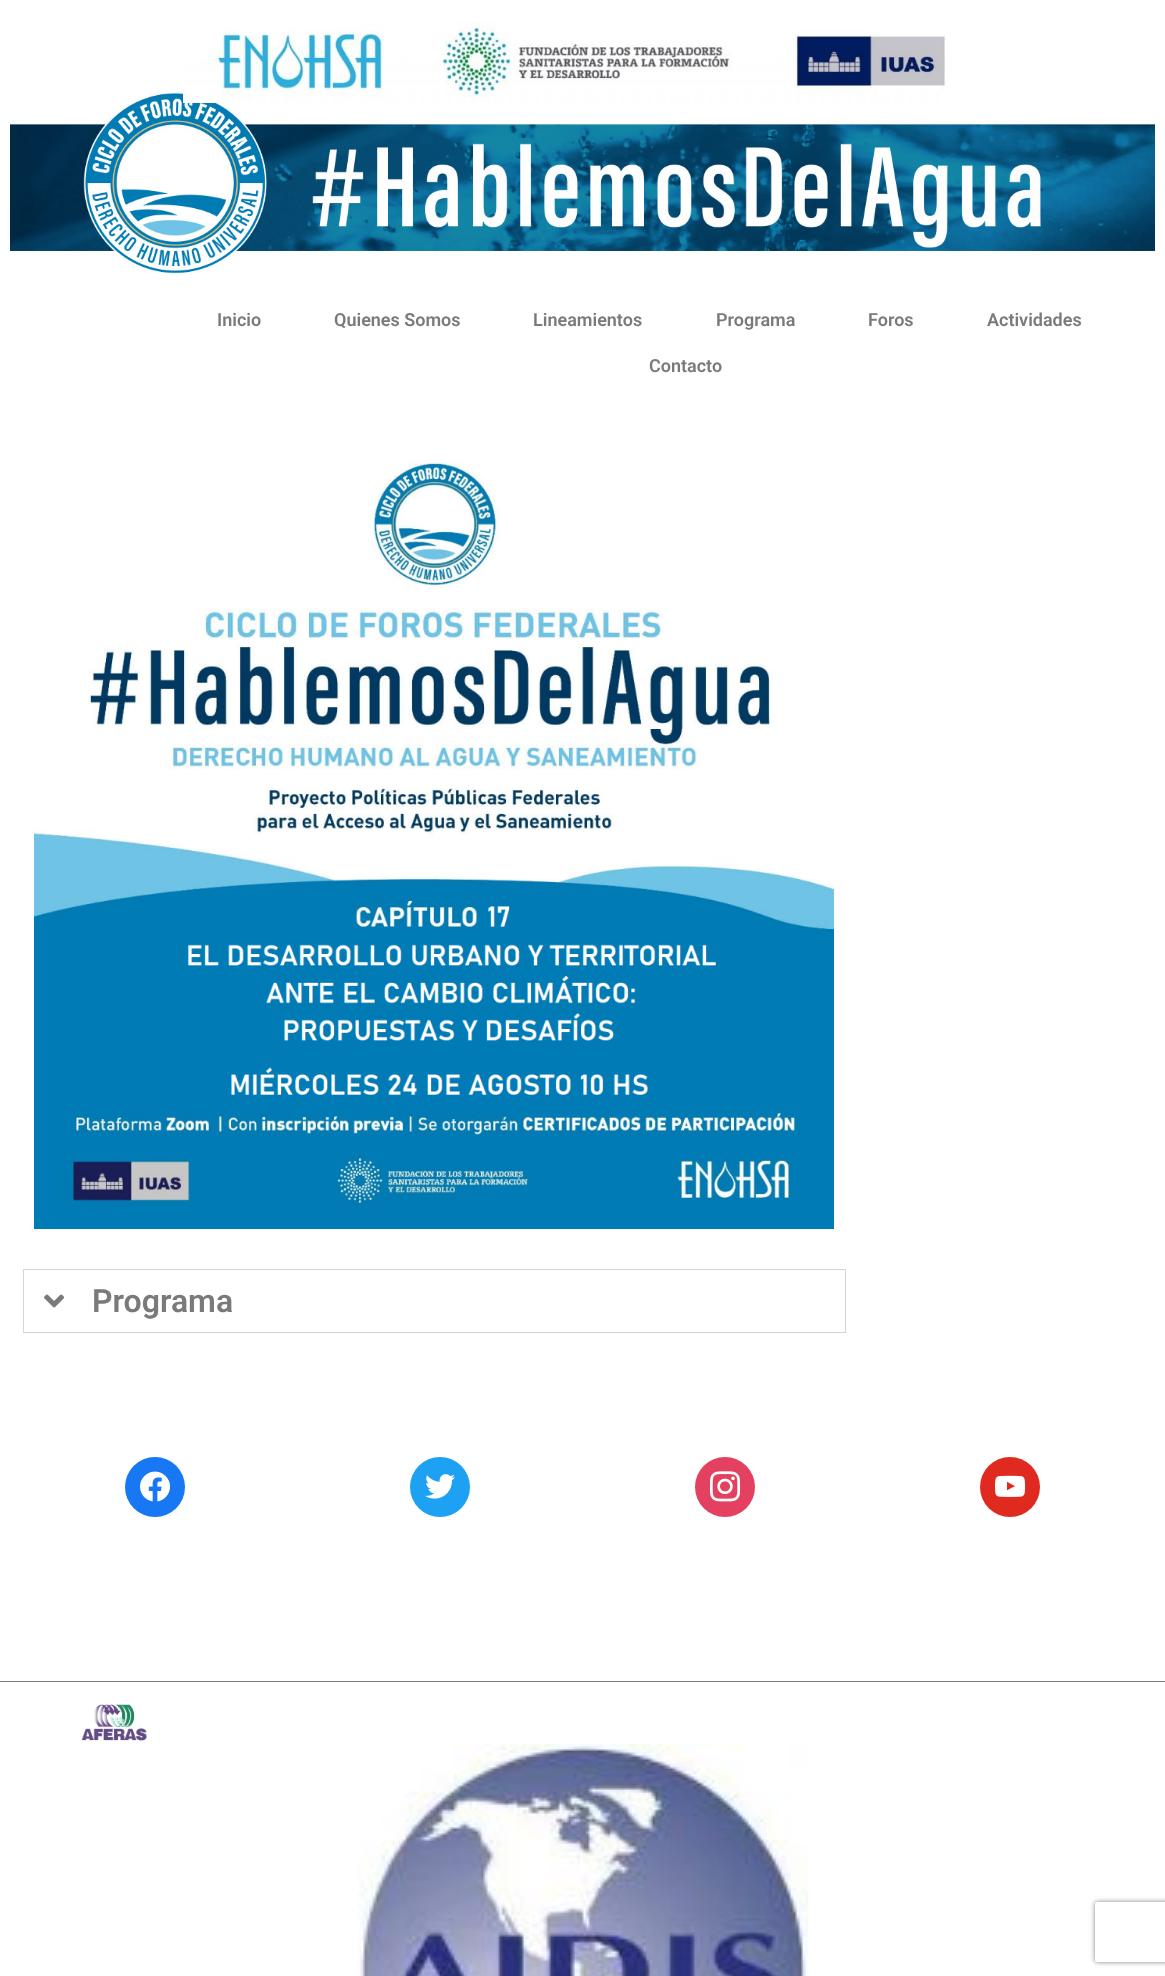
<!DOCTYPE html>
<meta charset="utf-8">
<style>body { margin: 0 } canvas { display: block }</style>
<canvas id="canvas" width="1165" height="1976"></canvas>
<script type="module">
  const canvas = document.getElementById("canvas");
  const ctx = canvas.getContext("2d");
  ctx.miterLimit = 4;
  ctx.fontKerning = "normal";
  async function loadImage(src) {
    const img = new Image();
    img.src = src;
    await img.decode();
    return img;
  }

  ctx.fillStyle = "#ffffff";
  ctx.fillRect(0, 0, 1165, 1976);
  ctx.drawImage(await loadImage("img2.png"), 10, 91, 1145, 183);
  ctx.drawImage(await loadImage("img1.png"), 183, 22, 763, 81);
  ctx.font = "600 18px Roboto";
  ctx.fillStyle = "#7a7a7a";
  ctx.fillText("Inicio", 217, 326);
  ctx.fillText("Quienes Somos", 334, 326);
  ctx.fillText("Lineamientos", 533, 326);
  ctx.fillText("Programa", 716, 326);
  ctx.fillText("Foros", 868, 326);
  ctx.fillText("Actividades", 987, 326);
  ctx.fillText("Contacto", 649, 372);
  ctx.drawImage(await loadImage("img3.png"), 34, 459, 800, 770);
  ctx.strokeStyle = "#d4d4d4";
  ctx.strokeRect(23.5, 1269.5, 822, 63);
  ctx.drawImage(await loadImage("img4.png"), 44, 1294, 20, 14);
  ctx.font = "600 32px Roboto";
  ctx.fillText("Programa", 92, 1312);
  ctx.fillStyle = "#1877f2";
  ctx.beginPath();
  ctx.arc(155, 1487, 30, 0, Math.PI * 2);
  ctx.fill();
  ctx.drawImage(await loadImage("img5.png"), 140, 1471, 30, 31);
  ctx.fillStyle = "#1da1f2";
  ctx.beginPath();
  ctx.arc(440, 1487, 30, 0, Math.PI * 2);
  ctx.fill();
  ctx.drawImage(await loadImage("img6.png"), 425, 1474, 30, 25);
  ctx.fillStyle = "#e4405f";
  ctx.beginPath();
  ctx.arc(725, 1487, 30, 0, Math.PI * 2);
  ctx.fill();
  ctx.drawImage(await loadImage("img7.png"), 710, 1471, 31, 31);
  ctx.fillStyle = "#e02a20";
  ctx.beginPath();
  ctx.arc(1010, 1487, 30, 0, Math.PI * 2);
  ctx.fill();
  ctx.drawImage(await loadImage("img8.png"), 995, 1475, 31, 22);
  ctx.fillStyle = "#7a7a7a";
  ctx.fillRect(0, 1681, 1165, 1);
  ctx.drawImage(await loadImage("img9.png"), 81, 1704, 66, 37);
  ctx.drawImage(await loadImage("img10.png"), 358, 1744, 450, 232);
  ctx.save();
  ctx.beginPath();
  ctx.moveTo(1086, 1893);
  ctx.lineTo(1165, 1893);
  ctx.lineTo(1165, 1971);
  ctx.lineTo(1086, 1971);
  ctx.closePath();
  ctx.moveTo(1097, 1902);
  ctx.lineTo(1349, 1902);
  ctx.bezierCurveTo(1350, 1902, 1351, 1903, 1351, 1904);
  ctx.lineTo(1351, 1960);
  ctx.bezierCurveTo(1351, 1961, 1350, 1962, 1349, 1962);
  ctx.lineTo(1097, 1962);
  ctx.bezierCurveTo(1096, 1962, 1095, 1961, 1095, 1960);
  ctx.lineTo(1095, 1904);
  ctx.bezierCurveTo(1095, 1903, 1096, 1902, 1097, 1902);
  ctx.closePath();
  ctx.clip("evenodd");
  ctx.fillStyle = "#808080";
  ctx.filter = "blur(2.5px)";
  ctx.beginPath();
  ctx.roundRect(1095, 1902, 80, 60, 2);
  ctx.fill();
  ctx.filter = "none";
  ctx.restore();
</script>
